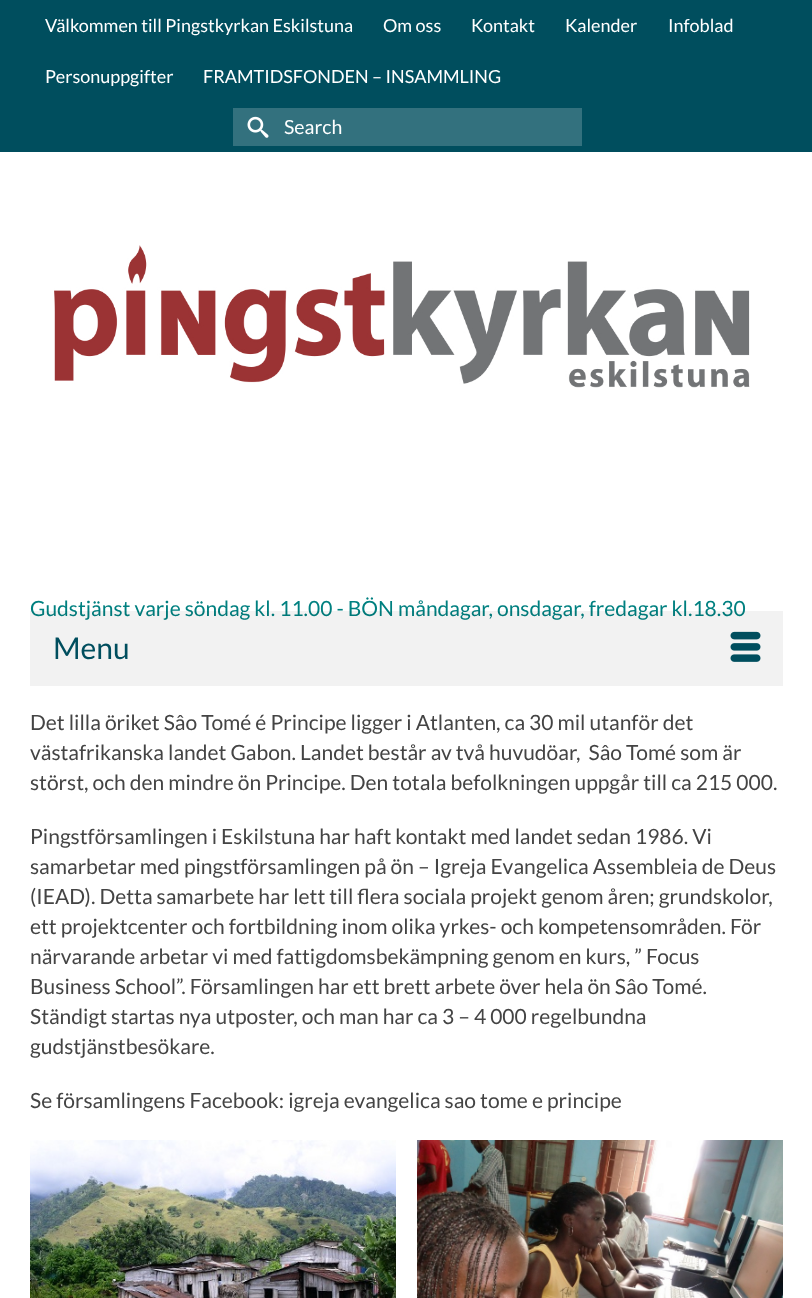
<!DOCTYPE html>
<meta charset="utf-8">
<style>body { margin: 0 } canvas { display: block }</style>
<canvas id="canvas" width="812" height="1298"></canvas>
<script type="module">
  const canvas = document.getElementById("canvas");
  const ctx = canvas.getContext("2d");
  ctx.miterLimit = 4;
  ctx.fontKerning = "normal";
  async function loadImage(src) {
    const img = new Image();
    img.src = src;
    await img.decode();
    return img;
  }

  ctx.fillStyle = "#ffffff";
  ctx.fillRect(0, 0, 812, 1298);
  ctx.fillStyle = "#004e5e";
  ctx.fillRect(0, 0, 812, 152);
  ctx.font = "18px Lato";
  ctx.fillStyle = "#ffffff";
  ctx.fillText("Välkommen till Pingstkyrkan Eskilstuna", 45, 32);
  ctx.fillText("Om oss", 383, 32);
  ctx.fillText("Kontakt", 471, 32);
  ctx.fillText("Kalender", 565, 32);
  ctx.fillText("Infoblad", 668, 32);
  ctx.fillText("Personuppgifter", 45, 83);
  ctx.fillText("FRAMTIDSFONDEN – INSAMMLING", 203, 83);
  ctx.fillStyle = "#33717e";
  ctx.fillRect(233, 108, 349, 38);
  ctx.drawImage(await loadImage("img1.png"), 247, 116, 22, 22);
  ctx.font = "19.5px Lato";
  ctx.fillStyle = "#ffffff";
  ctx.fillText("Search", 284, 134);
  ctx.drawImage(await loadImage("img2.png"), 54, 245, 696, 143);
  ctx.font = "21px Lato";
  ctx.fillStyle = "#008080";
  ctx.fillText("Gudstjänst varje söndag kl. 11.00 - BÖN måndagar, onsdagar, fredagar kl.18.30", 30, 616);
  ctx.fillStyle = "rgba(0, 0, 0, 0.05)";
  ctx.fillRect(30, 611, 753, 75);
  ctx.font = "30px Lato";
  ctx.fillStyle = "#004e5e";
  ctx.fillText("Menu", 53, 659);
  ctx.drawImage(await loadImage("img3.png"), 730, 631, 31, 31);
  ctx.font = "21px Lato";
  ctx.fillStyle = "#444444";
  ctx.fillText("Det lilla öriket Sâo Tomé é Principe ligger i Atlanten, ca 30 mil utanför det", 30, 730);
  ctx.fillText("västafrikanska landet Gabon. Landet består av två huvudöar,  Sâo Tomé som är", 30, 760);
  ctx.fillText("störst, och den mindre ön Principe. Den totala befolkningen uppgår till ca 215 000.", 30, 790);
  ctx.fillText("Pingstförsamlingen i Eskilstuna har haft kontakt med landet sedan 1986. Vi", 30, 844);
  ctx.fillText("samarbetar med pingstförsamlingen på ön – Igreja Evangelica Assembleia de Deus", 30, 874);
  ctx.fillText("(IEAD). Detta samarbete har lett till flera sociala projekt genom åren; grundskolor,", 30, 904);
  ctx.fillText("ett projektcenter och fortbildning inom olika yrkes- och kompetensområden. För", 30, 934);
  ctx.fillText("närvarande arbetar vi med fattigdomsbekämpning genom en kurs, ” Focus", 30, 964);
  ctx.fillText("Business School”. Församlingen har ett brett arbete över hela ön Sâo Tomé.", 30, 994);
  ctx.fillText("Ständigt startas nya utposter, och man har ca 3 – 4 000 regelbundna", 30, 1024);
  ctx.fillText("gudstjänstbesökare.", 30, 1054);
  ctx.fillText("Se församlingens Facebook: igreja evangelica sao tome e principe", 30, 1108);
  ctx.drawImage(await loadImage("img4.png"), 30, 1140, 366, 158);
  ctx.drawImage(await loadImage("img5.png"), 417, 1140, 366, 158);
</script>
